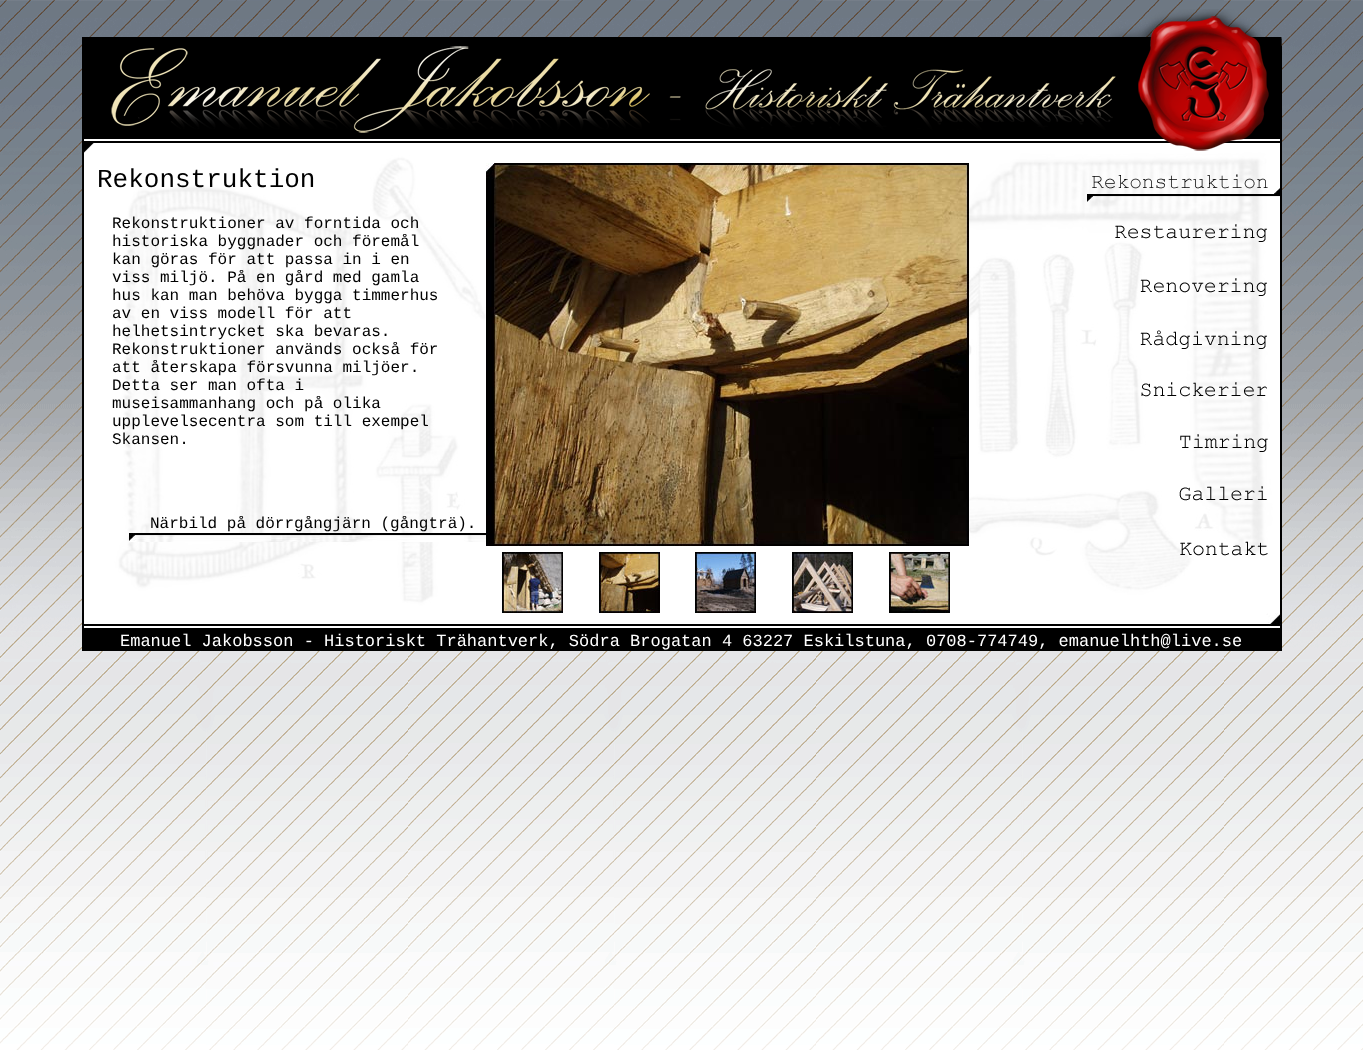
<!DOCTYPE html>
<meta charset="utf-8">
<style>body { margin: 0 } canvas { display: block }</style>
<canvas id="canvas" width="1363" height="1050"></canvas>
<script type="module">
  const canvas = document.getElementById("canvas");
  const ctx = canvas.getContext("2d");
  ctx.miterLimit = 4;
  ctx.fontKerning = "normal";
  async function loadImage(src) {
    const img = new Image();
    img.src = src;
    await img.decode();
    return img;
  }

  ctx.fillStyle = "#ffffff";
  ctx.fillRect(0, 0, 1363, 1050);
  ctx.drawImage(await loadImage("img1.png"), 0, 0, 1363, 1050);
  ctx.drawImage(await loadImage("img2.png"), 82, 9, 1200, 146);
  ctx.drawImage(await loadImage("img3.png"), 82, 155, 1200, 458);
  ctx.font = "26px Liberation Mono";
  ctx.fillStyle = "#000000";
  ctx.fillText("Rekonstruktion", 97, 187);
  ctx.font = "16px Liberation Mono";
  ctx.fillText("Rekonstruktioner av forntida och", 112, 228);
  ctx.fillText("historiska byggnader och föremål", 112, 246);
  ctx.fillText("kan göras för att passa in i en", 112, 264);
  ctx.fillText("viss miljö. På en gård med gamla", 112, 282);
  ctx.fillText("hus kan man behöva bygga timmerhus", 112, 300);
  ctx.fillText("av en viss modell för att", 112, 318);
  ctx.fillText("helhetsintrycket ska bevaras.", 112, 336);
  ctx.fillText("Rekonstruktioner används också för", 112, 354);
  ctx.fillText("att återskapa försvunna miljöer.", 112, 372);
  ctx.fillText("Detta ser man ofta i", 112, 390);
  ctx.fillText("museisammanhang och på olika", 112, 408);
  ctx.fillText("upplevelsecentra som till exempel", 112, 426);
  ctx.fillText("Skansen.", 112, 444);
  ctx.fillText("Närbild på dörrgångjärn (gångträ).", 150, 528);
  ctx.drawImage(await loadImage("img4.png"), 129, 533, 7, 9);
  ctx.drawImage(await loadImage("img5.png"), 136, 533, 350, 9);
  ctx.drawImage(await loadImage("img6.png"), 486, 163, 483, 383);
  ctx.drawImage(await loadImage("img7.png"), 502, 552, 61, 61);
  ctx.drawImage(await loadImage("img8.png"), 599, 552, 61, 61);
  ctx.drawImage(await loadImage("img9.png"), 695, 552, 61, 61);
  ctx.drawImage(await loadImage("img10.png"), 792, 552, 61, 61);
  ctx.drawImage(await loadImage("img11.png"), 889, 552, 61, 61);
  ctx.drawImage(await loadImage("img12.png"), 1087, 174, 193, 28);
  ctx.drawImage(await loadImage("img13.png"), 1115, 224, 152, 18);
  ctx.drawImage(await loadImage("img14.png"), 1140, 278, 127, 18);
  ctx.drawImage(await loadImage("img15.png"), 1140, 330, 127, 19);
  ctx.drawImage(await loadImage("img16.png"), 1141, 382, 126, 15);
  ctx.drawImage(await loadImage("img17.png"), 1180, 434, 88, 18);
  ctx.drawImage(await loadImage("img18.png"), 1179, 486, 88, 15);
  ctx.drawImage(await loadImage("img19.png"), 1180, 541, 88, 15);
  ctx.drawImage(await loadImage("img20.png"), 82, 613, 1200, 38);
  ctx.font = "17px Liberation Mono";
  ctx.fillStyle = "#ffffff";
  ctx.fillText("Emanuel Jakobsson - Historiskt Trähantverk, Södra Brogatan 4 63227 Eskilstuna, 0708-774749, emanuelhth@live.se", 120, 646);
</script>
